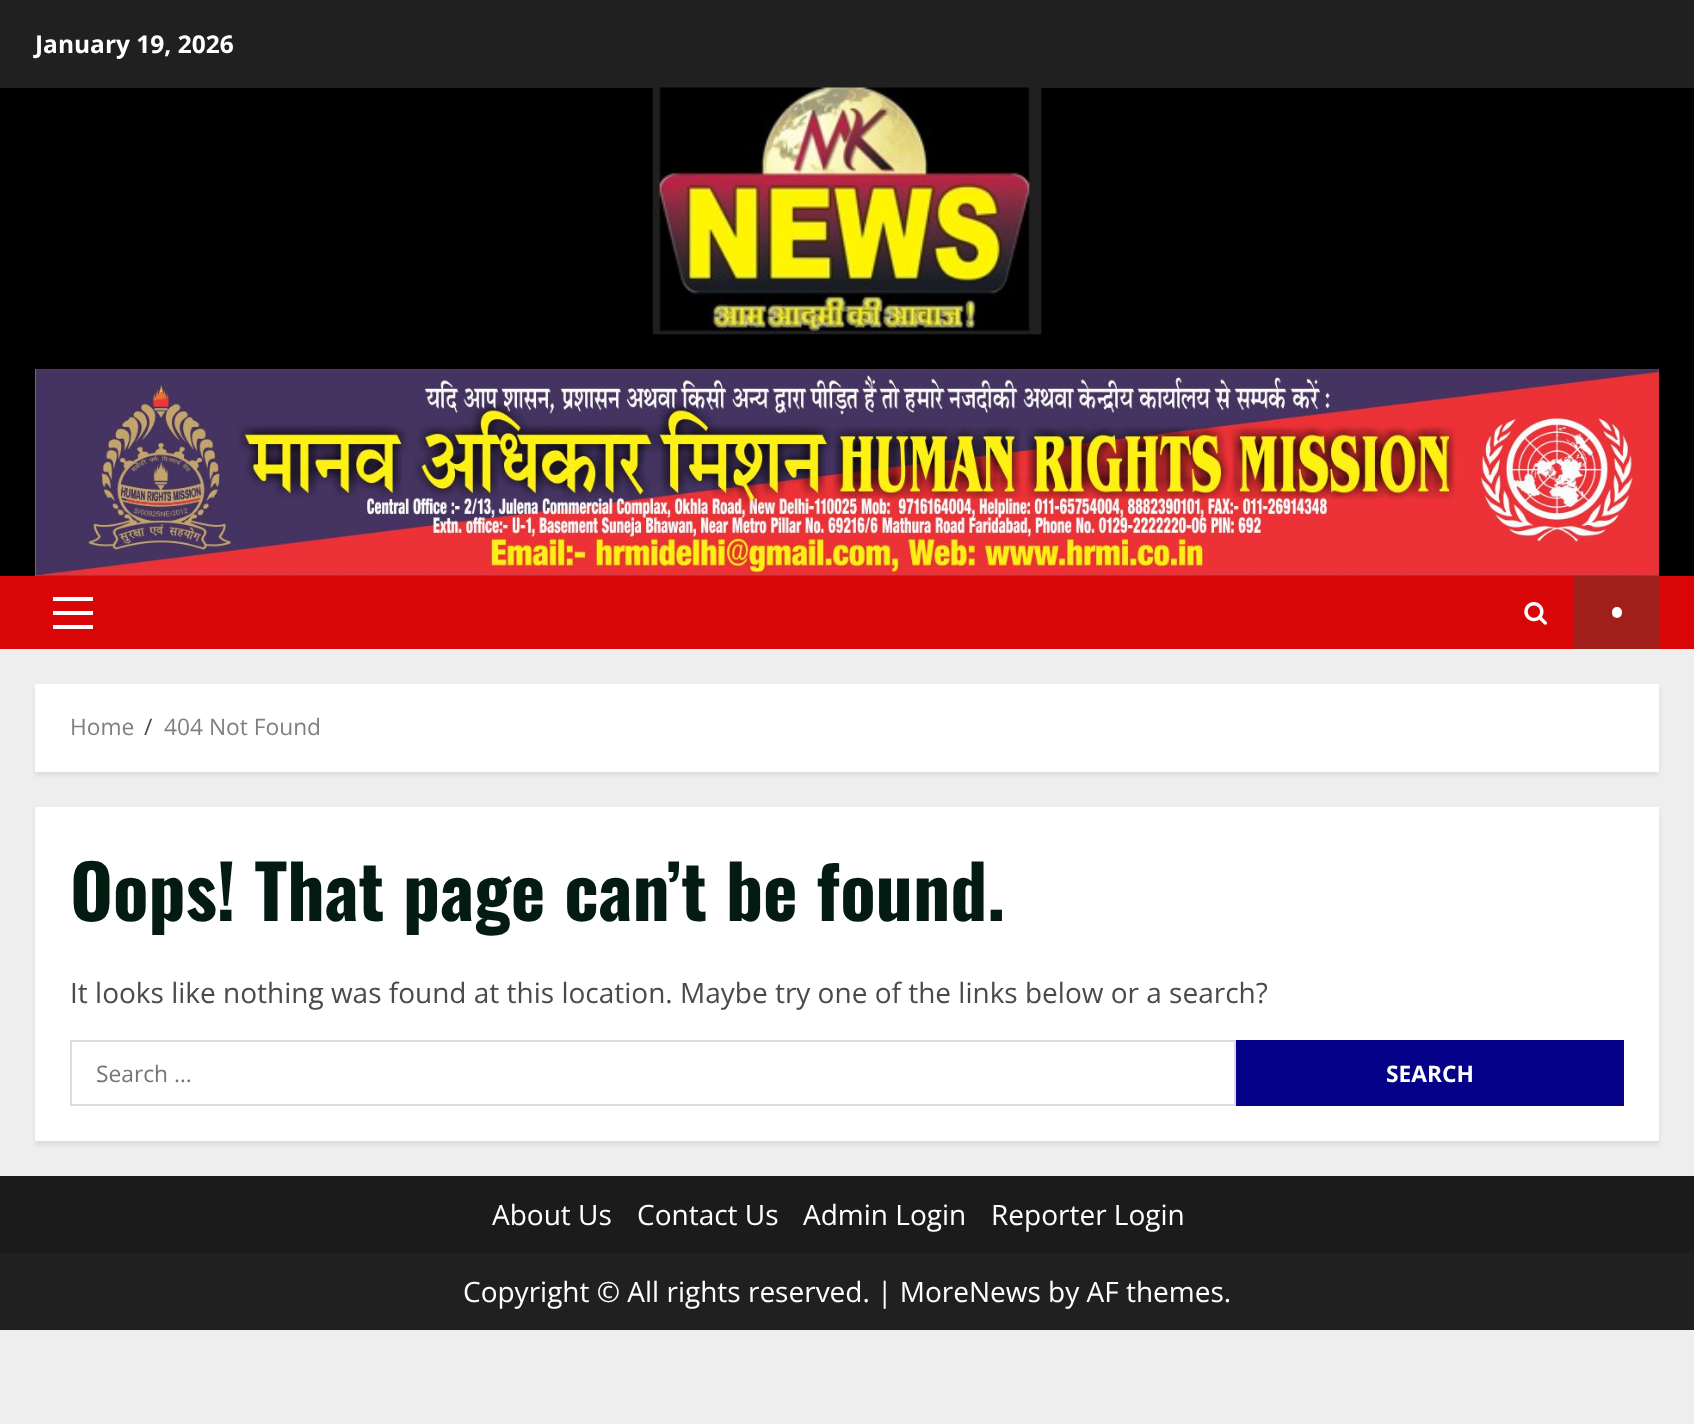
<!DOCTYPE html>
<meta charset="utf-8">
<style>body { margin: 0 } canvas { display: block }</style>
<canvas id="canvas" width="1694" height="1424"></canvas>
<script type="module">
  const canvas = document.getElementById("canvas");
  const ctx = canvas.getContext("2d");
  ctx.miterLimit = 4;
  ctx.fontKerning = "normal";
  async function loadImage(src) {
    const img = new Image();
    img.src = src;
    await img.decode();
    return img;
  }

  ctx.fillStyle = "#eeeeee";
  ctx.fillRect(0, 0, 1694, 1424);
  ctx.fillStyle = "#202020";
  ctx.fillRect(0, 0, 1694, 88);
  ctx.font = "bold 24.5px Open Sans";
  ctx.fillStyle = "#ffffff";
  ctx.fillText("January 19, 2026", 35, 53);
  ctx.fillStyle = "#000000";
  ctx.fillRect(0, 88, 1694, 488);
  ctx.drawImage(await loadImage("img1.png"), 652, 87, 390, 248);
  ctx.drawImage(await loadImage("img2.png"), 35, 369, 1624, 207);
  ctx.fillStyle = "#d80606";
  ctx.fillRect(0, 576, 1694, 73);
  ctx.fillStyle = "#ffffff";
  ctx.fillRect(53, 611, 40, 4);
  ctx.fillRect(53, 597, 40, 4);
  ctx.fillRect(53, 625, 40, 4);
  ctx.drawImage(await loadImage("img3.png"), 1524, 602, 23, 23);
  ctx.fillStyle = "#a11f1b";
  ctx.fillRect(1573, 576, 86, 73);
  ctx.fillStyle = "#ffffff";
  ctx.beginPath();
  ctx.roundRect(1612, 607, 10, 11, 5);
  ctx.fill();
  ctx.fillStyle = "rgba(0, 0, 0, 0.08)";
  ctx.filter = "blur(2px)";
  ctx.beginPath();
  ctx.rect(35, 688, 1624, 87);
  ctx.fill();
  ctx.filter = "none";
  ctx.fillStyle = "#ffffff";
  ctx.fillRect(35, 684, 1624, 88);
  ctx.font = "22.75px Open Sans";
  ctx.fillStyle = "#808080";
  ctx.fillText("Home", 70, 735);
  ctx.fillStyle = "#4a4a4a";
  ctx.fillText("/", 144, 735);
  ctx.fillStyle = "#808080";
  ctx.fillText("404 Not Found", 164, 735);
  ctx.fillStyle = "rgba(0, 0, 0, 0.08)";
  ctx.filter = "blur(2px)";
  ctx.beginPath();
  ctx.rect(35, 810, 1624, 335);
  ctx.fill();
  ctx.filter = "none";
  ctx.fillStyle = "#ffffff";
  ctx.fillRect(35, 807, 1624, 334);
  ctx.font = "bold 73.5px Oswald";
  ctx.fillStyle = "#031b11";
  ctx.fillText("Oops! That page can’t be found.", 70, 921);
  ctx.font = "28px Open Sans";
  ctx.fillStyle = "#4a4a4a";
  ctx.fillText("It looks like nothing was found at this location. Maybe try one of the links below or a search?", 70, 1003);
  ctx.strokeStyle = "#dcdcdc";
  ctx.lineWidth = 2;
  ctx.strokeRect(71, 1041, 1164, 64);
  ctx.font = "22.75px Open Sans";
  ctx.fillStyle = "#757575";
  ctx.fillText("Search …", 96, 1082);
  ctx.fillStyle = "#040087";
  ctx.fillRect(1236, 1040, 388, 66);
  ctx.font = "bold 22.75px Open Sans";
  ctx.fillStyle = "#ffffff";
  ctx.fillText("SEARCH", 1386, 1082);
  ctx.fillStyle = "#202020";
  ctx.fillRect(0, 1253, 1694, 77);
  ctx.fillStyle = "#1b1b1b";
  ctx.fillRect(0, 1176, 1694, 77);
  ctx.font = "28px Open Sans";
  ctx.fillStyle = "#ffffff";
  ctx.fillText("About Us", 492, 1225);
  ctx.fillText("Contact Us", 637, 1225);
  ctx.fillText("Admin Login", 803, 1225);
  ctx.fillText("Reporter Login", 991, 1225);
  ctx.fillText("Copyright © All rights reserved. | MoreNews by AF themes.", 463, 1302);
</script>
